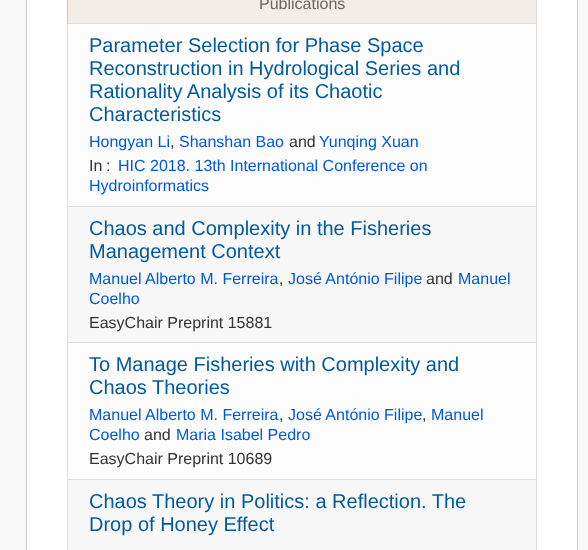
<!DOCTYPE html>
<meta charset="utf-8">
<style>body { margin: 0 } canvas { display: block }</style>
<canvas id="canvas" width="588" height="550"></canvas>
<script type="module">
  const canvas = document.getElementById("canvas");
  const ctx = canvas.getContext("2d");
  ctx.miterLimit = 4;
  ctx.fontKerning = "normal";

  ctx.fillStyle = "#f8f8f8";
  ctx.fillRect(0, 0, 588, 550);
  ctx.fillStyle = "#ffffff";
  ctx.beginPath();
  ctx.rect(26.5, -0.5, 551, 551);
  ctx.fill();
  ctx.strokeStyle = "#cccccc";
  ctx.stroke();
  ctx.fillStyle = "#dedede";
  ctx.fillRect(536, 0, 1, 550);
  ctx.fillRect(67, 24, 1, 526);
  ctx.fillStyle = "#f2ede9";
  ctx.fillRect(68, 0, 468, 23);
  ctx.fillStyle = "#dedede";
  ctx.fillRect(67, 23, 470, 1);
  ctx.fillStyle = "#cccccc";
  ctx.fillRect(67, 0, 1, 24);
  ctx.font = "16px Liberation Sans";
  ctx.fillStyle = "#666666";
  ctx.fillText("Publications", 259, 9);
  ctx.fillStyle = "#fcfcfc";
  ctx.fillRect(68, 24, 468, 182);
  ctx.fillStyle = "#dedede";
  ctx.fillRect(67, 206, 470, 1);
  ctx.font = "20px Liberation Sans";
  ctx.fillStyle = "#005a9f";
  ctx.fillText("Parameter Selection for Phase Space", 89, 52);
  ctx.fillText("Reconstruction in Hydrological Series and", 89, 75);
  ctx.fillText("Rationality Analysis of its Chaotic", 89, 98);
  ctx.fillText("Characteristics", 89, 121);
  ctx.font = "16px Liberation Sans";
  ctx.fillStyle = "#0059db";
  ctx.fillText("Hongyan Li", 89, 147);
  ctx.fillStyle = "#333333";
  ctx.fillText(",", 170, 147);
  ctx.fillStyle = "#0059db";
  ctx.fillText("Shanshan Bao", 179, 147);
  ctx.fillStyle = "#333333";
  ctx.fillText("and", 289, 147);
  ctx.fillStyle = "#0059db";
  ctx.fillText("Yunqing Xuan", 319, 147);
  ctx.fillStyle = "#333333";
  ctx.fillText("In", 89, 171);
  ctx.fillText(":", 106, 171);
  ctx.fillStyle = "#0059db";
  ctx.fillText("HIC 2018. 13th International Conference on", 118, 171);
  ctx.fillText("Hydroinformatics", 89, 191);
  ctx.fillStyle = "#f7f7f7";
  ctx.fillRect(68, 207, 468, 135);
  ctx.fillStyle = "#dedede";
  ctx.fillRect(67, 342, 470, 1);
  ctx.font = "20px Liberation Sans";
  ctx.fillStyle = "#005a9f";
  ctx.fillText("Chaos and Complexity in the Fisheries", 89, 235);
  ctx.fillText("Management Context", 89, 258);
  ctx.font = "16px Liberation Sans";
  ctx.fillStyle = "#0059db";
  ctx.fillText("Manuel Alberto M. Ferreira", 89, 284);
  ctx.fillStyle = "#333333";
  ctx.fillText(",", 279, 284);
  ctx.fillStyle = "#0059db";
  ctx.fillText("José António Filipe", 288, 284);
  ctx.fillStyle = "#333333";
  ctx.fillText("and", 426, 284);
  ctx.fillStyle = "#0059db";
  ctx.fillText("Manuel", 458, 284);
  ctx.fillText("Coelho", 89, 304);
  ctx.fillStyle = "#333333";
  ctx.fillText("EasyChair Preprint 15881", 89, 328);
  ctx.fillStyle = "#fcfcfc";
  ctx.fillRect(68, 343, 468, 136);
  ctx.fillStyle = "#dedede";
  ctx.fillRect(67, 479, 470, 1);
  ctx.font = "20px Liberation Sans";
  ctx.fillStyle = "#005a9f";
  ctx.fillText("To Manage Fisheries with Complexity and", 89, 371);
  ctx.fillText("Chaos Theories", 89, 394);
  ctx.font = "16px Liberation Sans";
  ctx.fillStyle = "#0059db";
  ctx.fillText("Manuel Alberto M. Ferreira", 89, 420);
  ctx.fillStyle = "#333333";
  ctx.fillText(",", 279, 420);
  ctx.fillStyle = "#0059db";
  ctx.fillText("José António Filipe", 288, 420);
  ctx.fillStyle = "#333333";
  ctx.fillText(",", 422, 420);
  ctx.fillStyle = "#0059db";
  ctx.fillText("Manuel", 431, 420);
  ctx.fillText("Coelho", 89, 440);
  ctx.fillStyle = "#333333";
  ctx.fillText("and", 144, 440);
  ctx.fillStyle = "#0059db";
  ctx.fillText("Maria Isabel Pedro", 176, 440);
  ctx.fillStyle = "#333333";
  ctx.fillText("EasyChair Preprint 10689", 89, 464);
  ctx.fillStyle = "#f7f7f7";
  ctx.fillRect(68, 480, 468, 70);
  ctx.font = "20px Liberation Sans";
  ctx.fillStyle = "#005a9f";
  ctx.fillText("Chaos Theory in Politics: a Reflection. The", 89, 508);
  ctx.fillText("Drop of Honey Effect", 89, 531);
</script>
